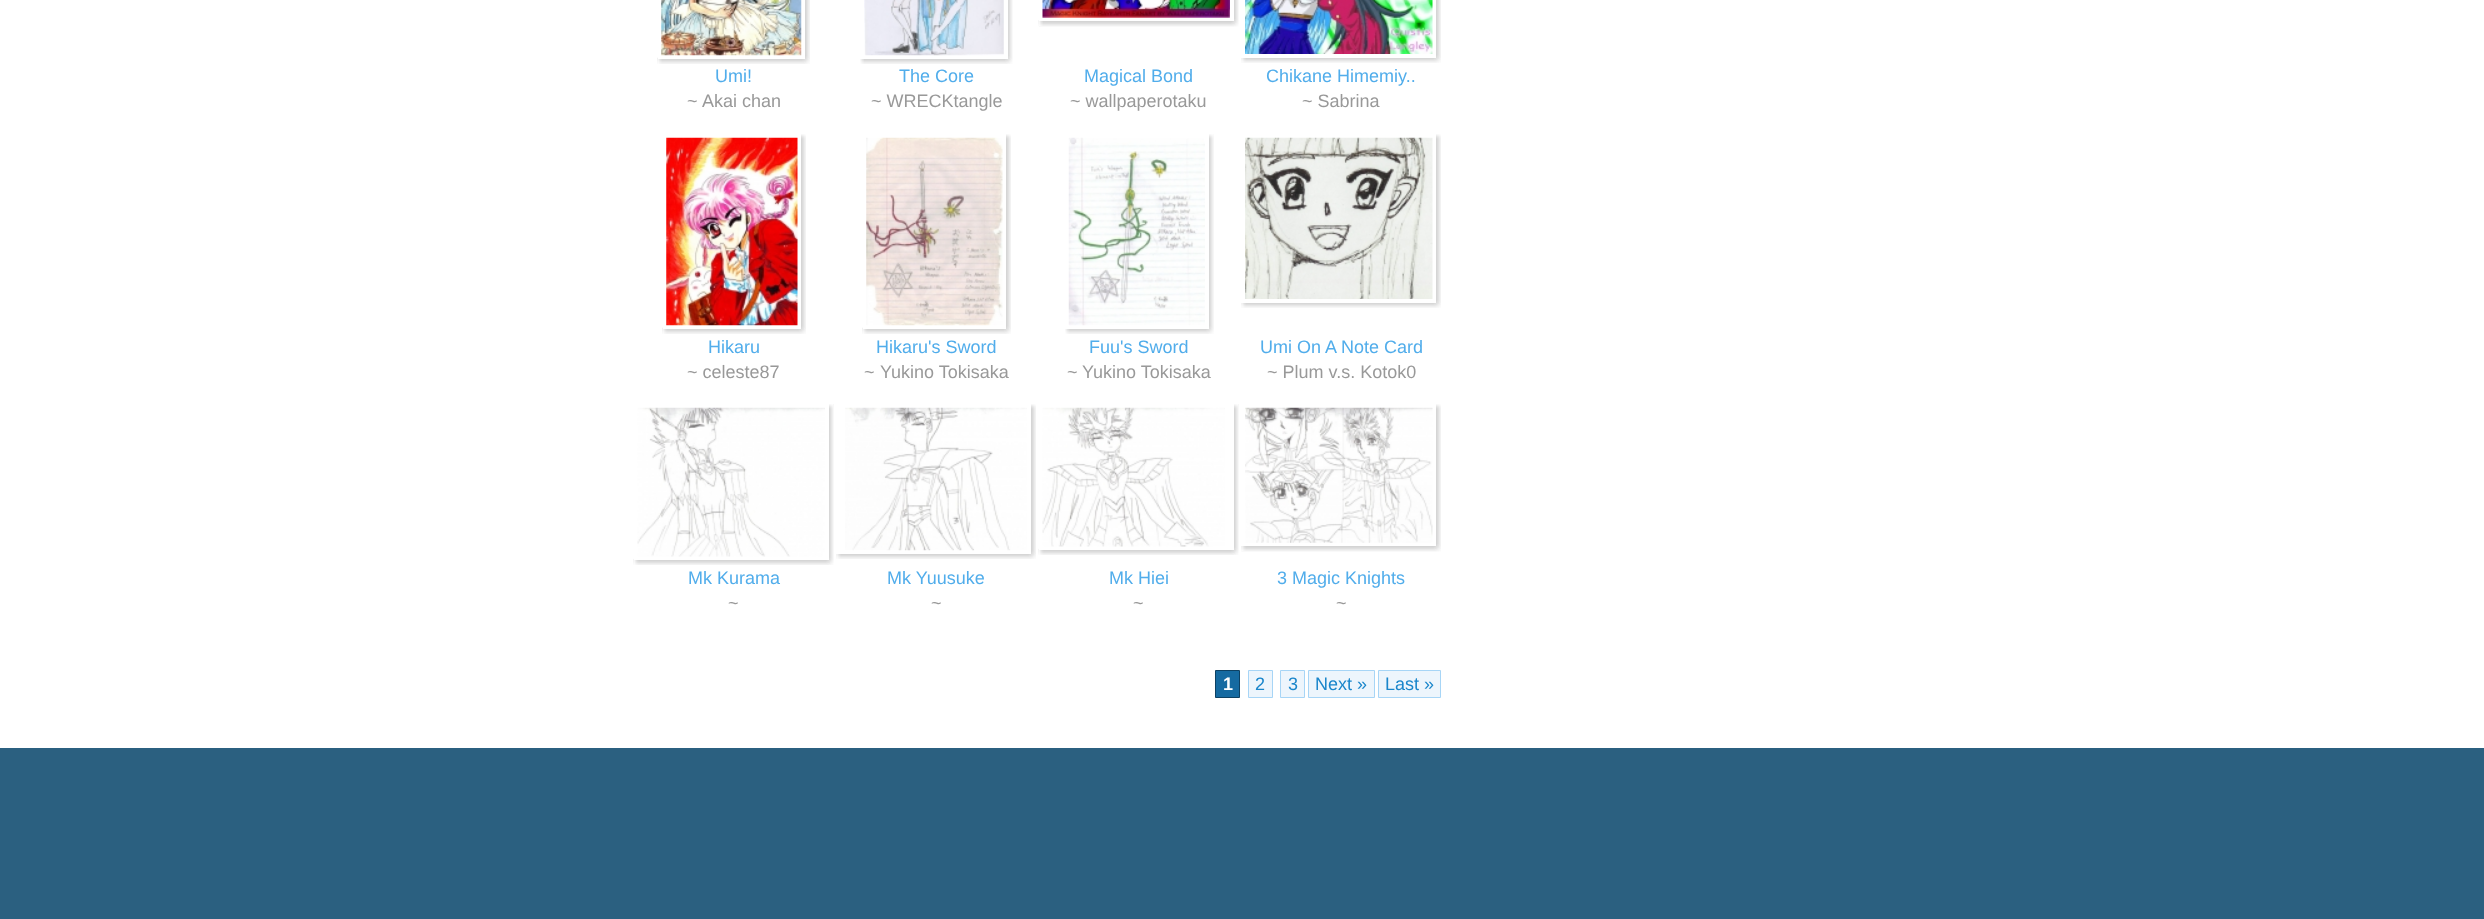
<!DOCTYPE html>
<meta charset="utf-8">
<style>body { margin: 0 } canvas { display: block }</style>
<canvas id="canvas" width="2484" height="919"></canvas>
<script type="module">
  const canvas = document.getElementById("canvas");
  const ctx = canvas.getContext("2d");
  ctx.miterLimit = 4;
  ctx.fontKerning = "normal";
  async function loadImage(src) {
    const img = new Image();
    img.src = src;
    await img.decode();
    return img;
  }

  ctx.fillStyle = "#ffffff";
  ctx.fillRect(0, 0, 2484, 919);
  ctx.drawImage(await loadImage("img1.png"), 657, 0, 153, 64);
  ctx.drawImage(await loadImage("img2.png"), 657, 57, 5, 7);
  ctx.strokeStyle = "#ffffff";
  ctx.lineWidth = 3;
  ctx.strokeRect(659.5, -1.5, 144, 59);
  ctx.drawImage(await loadImage("img3.png"), 661, 0, 141, 56);
  ctx.font = "18px Liberation Sans";
  ctx.fillStyle = "#51adeb";
  ctx.fillText("Umi!", 715, 82);
  ctx.fillStyle = "#999999";
  ctx.fillText("~", 687, 107);
  ctx.fillText("Akai chan", 702, 107);
  ctx.drawImage(await loadImage("img4.png"), 860, 0, 153, 64);
  ctx.drawImage(await loadImage("img5.png"), 860, 59, 4, 5);
  ctx.strokeRect(861.5, -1.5, 145, 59);
  ctx.drawImage(await loadImage("img6.png"), 864, 0, 140, 56);
  ctx.fillStyle = "#51adeb";
  ctx.fillText("The Core", 899, 82);
  ctx.fillStyle = "#999999";
  ctx.fillText("~ WRECKtangle", 871, 107);
  ctx.drawImage(await loadImage("img7.png"), 1038, 0, 201, 27);
  ctx.drawImage(await loadImage("img8.png"), 1039, 21, 4, 5);
  ctx.strokeRect(1040.5, -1.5, 192, 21);
  ctx.drawImage(await loadImage("img9.png"), 1042, 0, 188, 18);
  ctx.fillStyle = "#51adeb";
  ctx.fillText("Magical Bond", 1084, 82);
  ctx.fillStyle = "#999999";
  ctx.fillText("~ wallpaperotaku", 1070, 107);
  ctx.drawImage(await loadImage("img10.png"), 1241, 0, 200, 63);
  ctx.drawImage(await loadImage("img11.png"), 1241, 58, 5, 5);
  ctx.strokeRect(1242.5, -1.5, 192, 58);
  ctx.drawImage(await loadImage("img12.png"), 1245, 0, 188, 54);
  ctx.fillStyle = "#51adeb";
  ctx.fillText("Chikane Himemiy..", 1266, 82);
  ctx.fillStyle = "#999999";
  ctx.fillText("~ Sabrina", 1302, 107);
  ctx.drawImage(await loadImage("img13.png"), 662, 134, 144, 200);
  ctx.drawImage(await loadImage("img14.png"), 662, 134, 144, 200);
  ctx.strokeRect(664.5, 135.5, 135, 192);
  ctx.drawImage(await loadImage("img15.png"), 666, 137, 132, 189);
  ctx.fillStyle = "#51adeb";
  ctx.fillText("Hikaru", 708, 353);
  ctx.fillStyle = "#999999";
  ctx.fillText("~ celeste87", 687, 378);
  ctx.drawImage(await loadImage("img16.png"), 862, 134, 149, 200);
  ctx.drawImage(await loadImage("img17.png"), 862, 134, 149, 200);
  ctx.strokeRect(864.5, 135.5, 140, 192);
  ctx.drawImage(await loadImage("img18.png"), 866, 137, 137, 189);
  ctx.fillStyle = "#51adeb";
  ctx.fillText("Hikaru's Sword", 876, 353);
  ctx.fillStyle = "#999999";
  ctx.fillText("~", 864, 378);
  ctx.fillText("Yukino Tokisaka", 880, 378);
  ctx.drawImage(await loadImage("img19.png"), 1065, 134, 149, 200);
  ctx.drawImage(await loadImage("img20.png"), 1065, 134, 149, 200);
  ctx.strokeRect(1066.5, 135.5, 141, 192);
  ctx.drawImage(await loadImage("img21.png"), 1068, 137, 137, 189);
  ctx.fillStyle = "#51adeb";
  ctx.fillText("Fuu's Sword", 1089, 353);
  ctx.fillStyle = "#999999";
  ctx.fillText("~", 1067, 378);
  ctx.fillText("Yukino Tokisaka", 1082, 378);
  ctx.drawImage(await loadImage("img22.png"), 1241, 134, 200, 174);
  ctx.drawImage(await loadImage("img23.png"), 1241, 134, 200, 174);
  ctx.strokeRect(1242.5, 135.5, 192, 166);
  ctx.drawImage(await loadImage("img24.png"), 1245, 137, 188, 162);
  ctx.fillStyle = "#51adeb";
  ctx.fillText("Umi On A Note Card", 1260, 353);
  ctx.fillStyle = "#999999";
  ctx.fillText("~ Plum v.s. Kotok0", 1267, 378);
  ctx.drawImage(await loadImage("img25.png"), 633, 404, 201, 161);
  ctx.drawImage(await loadImage("img26.png"), 634, 404, 199, 161);
  ctx.strokeRect(635.5, 405.5, 192, 153);
  ctx.drawImage(await loadImage("img27.png"), 637, 407, 188, 150);
  ctx.fillStyle = "#51adeb";
  ctx.fillText("Mk Kurama", 688, 584);
  ctx.fillStyle = "#999999";
  ctx.fillText("~", 728, 609);
  ctx.drawImage(await loadImage("img28.png"), 836, 404, 200, 155);
  ctx.drawImage(await loadImage("img29.png"), 836, 404, 200, 155);
  ctx.strokeRect(837.5, 405.5, 192, 147);
  ctx.drawImage(await loadImage("img30.png"), 845, 407, 182, 144);
  ctx.fillStyle = "#51adeb";
  ctx.fillText("Mk Yuusuke", 887, 584);
  ctx.fillStyle = "#999999";
  ctx.fillText("~", 931, 609);
  ctx.drawImage(await loadImage("img31.png"), 1038, 404, 201, 151);
  ctx.drawImage(await loadImage("img32.png"), 1039, 404, 199, 151);
  ctx.strokeRect(1040.5, 405.5, 192, 143);
  ctx.drawImage(await loadImage("img33.png"), 1042, 407, 183, 140);
  ctx.fillStyle = "#51adeb";
  ctx.fillText("Mk Hiei", 1109, 584);
  ctx.fillStyle = "#999999";
  ctx.fillText("~", 1133, 609);
  ctx.drawImage(await loadImage("img34.png"), 1241, 404, 200, 148);
  ctx.drawImage(await loadImage("img35.png"), 1241, 404, 200, 147);
  ctx.strokeRect(1242.5, 405.5, 192, 139);
  ctx.drawImage(await loadImage("img36.png"), 1245, 407, 188, 136);
  ctx.fillStyle = "#51adeb";
  ctx.fillText("3 Magic Knights", 1277, 584);
  ctx.fillStyle = "#999999";
  ctx.fillText("~", 1336, 609);
  ctx.fillStyle = "#156aa1";
  ctx.beginPath();
  ctx.rect(1215.5, 670.5, 24, 27);
  ctx.fill();
  ctx.strokeStyle = "#0d4163";
  ctx.lineWidth = 1;
  ctx.stroke();
  ctx.font = "bold 18px Liberation Sans";
  ctx.fillStyle = "#ffffff";
  ctx.fillText("1", 1223, 690);
  ctx.fillStyle = "#edf5fc";
  ctx.beginPath();
  ctx.rect(1248.5, 670.5, 24, 27);
  ctx.fill();
  ctx.strokeStyle = "#a7d5f6";
  ctx.stroke();
  ctx.font = "18px Liberation Sans";
  ctx.fillStyle = "#1a86cb";
  ctx.fillText("2", 1255, 690);
  ctx.fillStyle = "#edf5fc";
  ctx.beginPath();
  ctx.rect(1280.5, 670.5, 24, 27);
  ctx.fill();
  ctx.stroke();
  ctx.fillStyle = "#1a86cb";
  ctx.fillText("3", 1288, 690);
  ctx.fillStyle = "#edf5fc";
  ctx.beginPath();
  ctx.rect(1308.5, 670.5, 66, 27);
  ctx.fill();
  ctx.stroke();
  ctx.fillStyle = "#1a86cb";
  ctx.fillText("Next »", 1315, 690);
  ctx.fillStyle = "#edf5fc";
  ctx.beginPath();
  ctx.rect(1378.5, 670.5, 62, 27);
  ctx.fill();
  ctx.stroke();
  ctx.fillStyle = "#1a86cb";
  ctx.fillText("Last »", 1385, 690);
  ctx.fillStyle = "#2b6080";
  ctx.fillRect(0, 748, 2484, 171);
</script>
